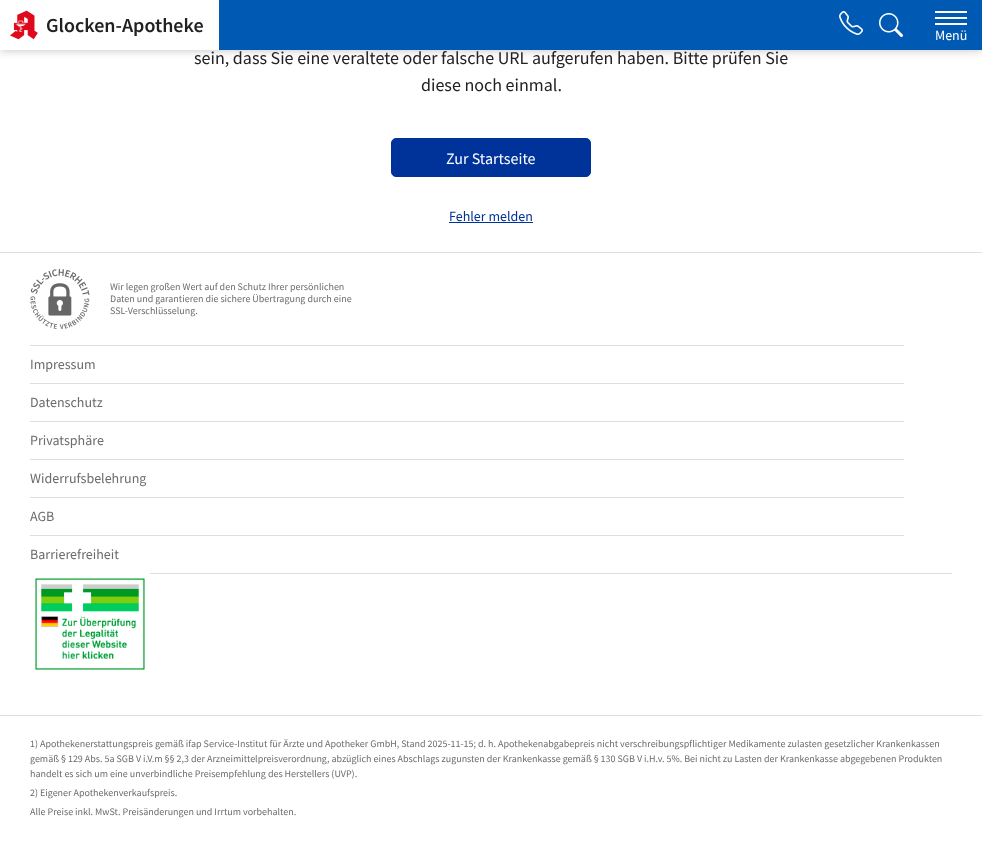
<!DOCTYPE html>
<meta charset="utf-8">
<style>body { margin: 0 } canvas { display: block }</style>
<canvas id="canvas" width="982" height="855"></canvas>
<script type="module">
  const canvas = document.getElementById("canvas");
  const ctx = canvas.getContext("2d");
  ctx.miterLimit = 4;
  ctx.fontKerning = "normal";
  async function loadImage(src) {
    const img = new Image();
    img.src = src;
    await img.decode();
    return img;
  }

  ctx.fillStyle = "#ffffff";
  ctx.fillRect(0, 0, 982, 855);
  ctx.fillStyle = "rgba(0, 0, 0, 0.25)";
  ctx.filter = "blur(5px)";
  ctx.beginPath();
  ctx.rect(0, 0, 982, 50);
  ctx.fill();
  ctx.filter = "none";
  ctx.fillStyle = "#0059b3";
  ctx.fillRect(219, 0, 763, 50);
  ctx.fillStyle = "#ffffff";
  ctx.fillRect(0, 0, 219, 50);
  ctx.drawImage(await loadImage("img1.png"), 10, 10, 28, 30);
  ctx.font = "600 20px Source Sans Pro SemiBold";
  ctx.fillStyle = "#212121";
  ctx.fillText("Glocken-Apotheke", 46, 32);
  ctx.drawImage(await loadImage("img2.png"), 839, 11, 24, 24);
  ctx.drawImage(await loadImage("img3.png"), 879, 13, 24, 24);
  ctx.fillStyle = "#ffffff";
  ctx.fillRect(935, 17, 32, 2);
  ctx.fillRect(935, 11, 32, 2);
  ctx.fillRect(935, 23, 32, 2);
  ctx.font = "14px Source Sans Pro";
  ctx.fillText("Menü", 935, 40);
  ctx.font = "18px Source Sans Pro";
  ctx.fillStyle = "#212121";
  ctx.fillText("sein, dass Sie eine veraltete oder falsche URL aufgerufen haben. Bitte prüfen Sie", 194, 64);
  ctx.fillText("diese noch einmal.", 421, 91);
  ctx.fillStyle = "#003399";
  ctx.beginPath();
  ctx.roundRect(391.5, 138.5, 199, 38, 4.5);
  ctx.fill();
  ctx.strokeStyle = "#003399";
  ctx.stroke();
  ctx.font = "16px Source Sans Pro";
  ctx.fillStyle = "#ffffff";
  ctx.fillText("Zur Startseite", 446, 164);
  ctx.font = "14px Source Sans Pro";
  ctx.fillStyle = "#003399";
  ctx.fillText("Fehler melden", 449, 221);
  ctx.fillRect(449, 222, 84, 1);
  ctx.fillStyle = "#dedede";
  ctx.fillRect(0, 252, 982, 1);
  ctx.drawImage(await loadImage("img4.png"), 30, 269, 60, 60);
  ctx.font = "10px Source Sans Pro";
  ctx.fillStyle = "#6c6c6c";
  ctx.fillText("Wir legen großen Wert auf den Schutz Ihrer persönlichen", 110, 290);
  ctx.fillText("Daten und garantieren die sichere Übertragung durch eine", 110, 302);
  ctx.fillText("SSL-Verschlüsselung.", 110, 314);
  ctx.fillStyle = "#dedede";
  ctx.fillRect(30, 345, 874, 1);
  ctx.font = "14px Source Sans Pro";
  ctx.fillStyle = "#6c6c6c";
  ctx.fillText("Impressum", 30, 369);
  ctx.fillStyle = "#dedede";
  ctx.fillRect(30, 383, 874, 1);
  ctx.fillStyle = "#6c6c6c";
  ctx.fillText("Datenschutz", 30, 407);
  ctx.fillStyle = "#dedede";
  ctx.fillRect(30, 421, 874, 1);
  ctx.fillStyle = "#6c6c6c";
  ctx.fillText("Privatsphäre", 30, 445);
  ctx.fillStyle = "#dedede";
  ctx.fillRect(30, 459, 874, 1);
  ctx.fillStyle = "#6c6c6c";
  ctx.fillText("Widerrufsbelehrung", 30, 483);
  ctx.fillStyle = "#dedede";
  ctx.fillRect(30, 497, 874, 1);
  ctx.fillStyle = "#6c6c6c";
  ctx.fillText("AGB", 30, 521);
  ctx.fillStyle = "#dedede";
  ctx.fillRect(30, 535, 874, 1);
  ctx.fillStyle = "#6c6c6c";
  ctx.fillText("Barrierefreiheit", 30, 559);
  ctx.fillStyle = "#dedede";
  ctx.fillRect(150, 573, 802, 1);
  ctx.drawImage(await loadImage("img5.png"), 30, 573, 120, 97);
  ctx.fillRect(0, 715, 982, 1);
  ctx.font = "10px Source Sans Pro";
  ctx.fillStyle = "#6c6c6c";
  ctx.fillText("1) Apothekenerstattungspreis gemäß ifap Service-Institut für Ärzte und Apotheker GmbH, Stand 2025-11-15; d. h. Apothekenabgabepreis nicht verschreibungspflichtiger Medikamente zulasten gesetzlicher Krankenkassen", 30, 747);
  ctx.fillText("gemäß § 129 Abs. 5a SGB V i.V.m §§ 2,3 der Arzneimittelpreisverordnung, abzüglich eines Abschlags zugunsten der Krankenkasse gemäß § 130 SGB V i.H.v. 5%. Bei nicht zu Lasten der Krankenkasse abgegebenen Produkten", 30, 762);
  ctx.fillText("handelt es sich um eine unverbindliche Preisempfehlung des Herstellers (UVP).", 30, 777);
  ctx.fillText("2) Eigener Apothekenverkaufspreis.", 30, 796);
  ctx.fillText("Alle Preise inkl. MwSt. Preisänderungen und Irrtum vorbehalten.", 30, 815);
</script>
